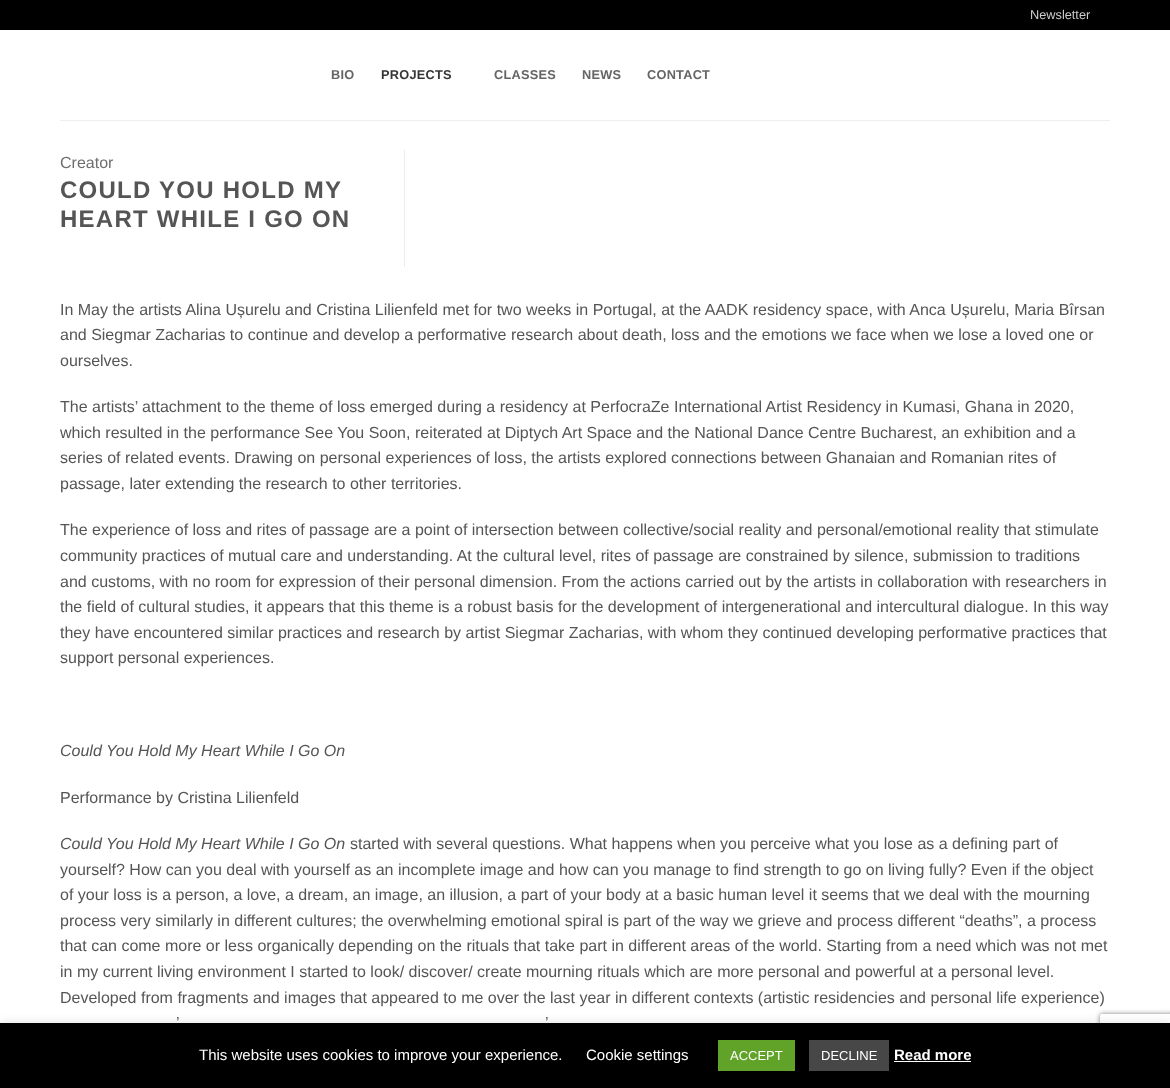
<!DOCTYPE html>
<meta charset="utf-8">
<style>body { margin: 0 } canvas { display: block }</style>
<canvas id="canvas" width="1170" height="1088"></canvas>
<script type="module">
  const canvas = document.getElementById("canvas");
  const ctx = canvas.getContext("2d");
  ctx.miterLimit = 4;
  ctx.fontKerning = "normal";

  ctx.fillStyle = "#ffffff";
  ctx.fillRect(0, 0, 1170, 1088);
  ctx.fillStyle = "#000000";
  ctx.fillRect(0, 0, 1170, 30);
  ctx.font = "12.75px Liberation Sans";
  ctx.fillStyle = "#cccccc";
  ctx.fillText("Newsletter", 1030, 19);
  ctx.letterSpacing = "0.25px";
  ctx.font = "bold 12.75px Liberation Sans";
  ctx.fillStyle = "#656565";
  ctx.fillText("BIO", 331, 79);
  ctx.fillStyle = "#363636";
  ctx.fillText("PROJECTS", 381, 79);
  ctx.fillStyle = "#656565";
  ctx.fillText("CLASSES", 494, 79);
  ctx.fillText("NEWS", 582, 79);
  ctx.fillText("CONTACT", 647, 79);
  ctx.fillStyle = "#eeeeee";
  ctx.fillRect(60, 120, 1050, 1);
  ctx.fillStyle = "#ececec";
  ctx.fillRect(404, 150, 1, 117);
  ctx.letterSpacing = "0px";
  ctx.font = "16px Liberation Sans";
  ctx.fillStyle = "#6e6e6e";
  ctx.fillText("Creator", 60, 168);
  ctx.letterSpacing = "1.25px";
  ctx.font = "bold 24px Liberation Sans";
  ctx.fillStyle = "#555555";
  ctx.fillText("COULD YOU HOLD MY", 60, 198);
  ctx.fillText("HEART WHILE I GO ON", 60, 227);
  ctx.letterSpacing = "0px";
  ctx.font = "16px Liberation Sans";
  ctx.fillText("In May the artists Alina Ușurelu and Cristina Lilienfeld met for two weeks in Portugal, at the AADK residency space, with Anca Ușurelu, Maria Bîrsan", 60, 315);
  ctx.fillText("and Siegmar Zacharias to continue and develop a performative research about death, loss and the emotions we face when we lose a loved one or", 60, 340);
  ctx.fillText("ourselves.", 60, 366);
  ctx.fillText("The artists’ attachment to the theme of loss emerged during a residency at PerfocraZe International Artist Residency in Kumasi, Ghana in 2020,", 60, 412);
  ctx.fillText("which resulted in the performance See You Soon, reiterated at Diptych Art Space and the National Dance Centre Bucharest, an exhibition and a", 60, 438);
  ctx.fillText("series of related events. Drawing on personal experiences of loss, the artists explored connections between Ghanaian and Romanian rites of", 60, 463);
  ctx.fillText("passage, later extending the research to other territories.", 60, 489);
  ctx.fillText("The experience of loss and rites of passage are a point of intersection between collective/social reality and personal/emotional reality that stimulate", 60, 535);
  ctx.fillText("community practices of mutual care and understanding. At the cultural level, rites of passage are constrained by silence, submission to traditions", 60, 561);
  ctx.fillText("and customs, with no room for expression of their personal dimension. From the actions carried out by the artists in collaboration with researchers in", 60, 587);
  ctx.fillText("the field of cultural studies, it appears that this theme is a robust basis for the development of intergenerational and intercultural dialogue. In this way", 60, 612);
  ctx.fillText("they have encountered similar practices and research by artist Siegmar Zacharias, with whom they continued developing performative practices that", 60, 638);
  ctx.fillText("support personal experiences.", 60, 663);
  ctx.font = "italic 16px Liberation Sans";
  ctx.fillText("Could You Hold My Heart While I Go On", 60, 756);
  ctx.font = "16px Liberation Sans";
  ctx.fillText("Performance by Cristina Lilienfeld", 60, 803);
  ctx.font = "italic 16px Liberation Sans";
  ctx.fillText("Could You Hold My Heart While I Go On", 60, 849);
  ctx.font = "16px Liberation Sans";
  ctx.fillText("started with several questions. What happens when you perceive what you lose as a defining part of", 350, 849);
  ctx.fillText("yourself? How can you deal with yourself as an incomplete image and how can you manage to find strength to go on living fully? Even if the object", 60, 875);
  ctx.fillText("of your loss is a person, a love, a dream, an image, an illusion, a part of your body at a basic human level it seems that we deal with the mourning", 60, 900);
  ctx.fillText("process very similarly in different cultures; the overwhelming emotional spiral is part of the way we grieve and process different “deaths”, a process", 60, 926);
  ctx.fillText("that can come more or less organically depending on the rituals that take part in different areas of the world. Starting from a need which was not met", 60, 951);
  ctx.fillText("in my current living environment I started to look/ discover/ create mourning rituals which are more personal and powerful at a personal level.", 60, 977);
  ctx.fillText("Developed from fragments and images that appeared to me over the last year in different contexts (artistic residencies and personal life experience)", 60, 1003);
  ctx.fillText("’", 176, 1028);
  ctx.fillText("’", 545, 1028);
  ctx.fillStyle = "rgba(172, 171, 171, 0.3)";
  ctx.filter = "blur(5px)";
  ctx.beginPath();
  ctx.rect(0, 1022, 1170, 65);
  ctx.fill();
  ctx.filter = "none";
  ctx.save();
  ctx.beginPath();
  ctx.moveTo(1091, 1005);
  ctx.lineTo(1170, 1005);
  ctx.lineTo(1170, 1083);
  ctx.lineTo(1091, 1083);
  ctx.closePath();
  ctx.moveTo(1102, 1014);
  ctx.lineTo(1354, 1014);
  ctx.bezierCurveTo(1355, 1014, 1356, 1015, 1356, 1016);
  ctx.lineTo(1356, 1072);
  ctx.bezierCurveTo(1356, 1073, 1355, 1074, 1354, 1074);
  ctx.lineTo(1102, 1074);
  ctx.bezierCurveTo(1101, 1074, 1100, 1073, 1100, 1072);
  ctx.lineTo(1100, 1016);
  ctx.bezierCurveTo(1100, 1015, 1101, 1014, 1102, 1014);
  ctx.closePath();
  ctx.clip("evenodd");
  ctx.fillStyle = "#808080";
  ctx.filter = "blur(2.5px)";
  ctx.beginPath();
  ctx.roundRect(1100, 1014, 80, 60, 2);
  ctx.fill();
  ctx.filter = "none";
  ctx.restore();
  ctx.fillStyle = "#000000";
  ctx.fillRect(0, 1023, 1170, 65);
  ctx.font = "15px Liberation Sans";
  ctx.fillStyle = "#ffffff";
  ctx.fillText("This website uses cookies to improve your experience.", 199, 1060);
  ctx.fillText("Cookie settings", 586, 1060);
  ctx.fillStyle = "#61a229";
  ctx.fillRect(718, 1040, 77, 31);
  ctx.font = "13px Liberation Sans";
  ctx.fillStyle = "#ffffff";
  ctx.fillText("ACCEPT", 730, 1060);
  ctx.fillStyle = "#474747";
  ctx.fillRect(809, 1040, 80, 31);
  ctx.fillStyle = "#ffffff";
  ctx.fillText("DECLINE", 821, 1060);
  ctx.font = "bold 15px Liberation Sans";
  ctx.fillText("Read more", 894, 1060);
  ctx.fillRect(894, 1061, 77, 1);
</script>
